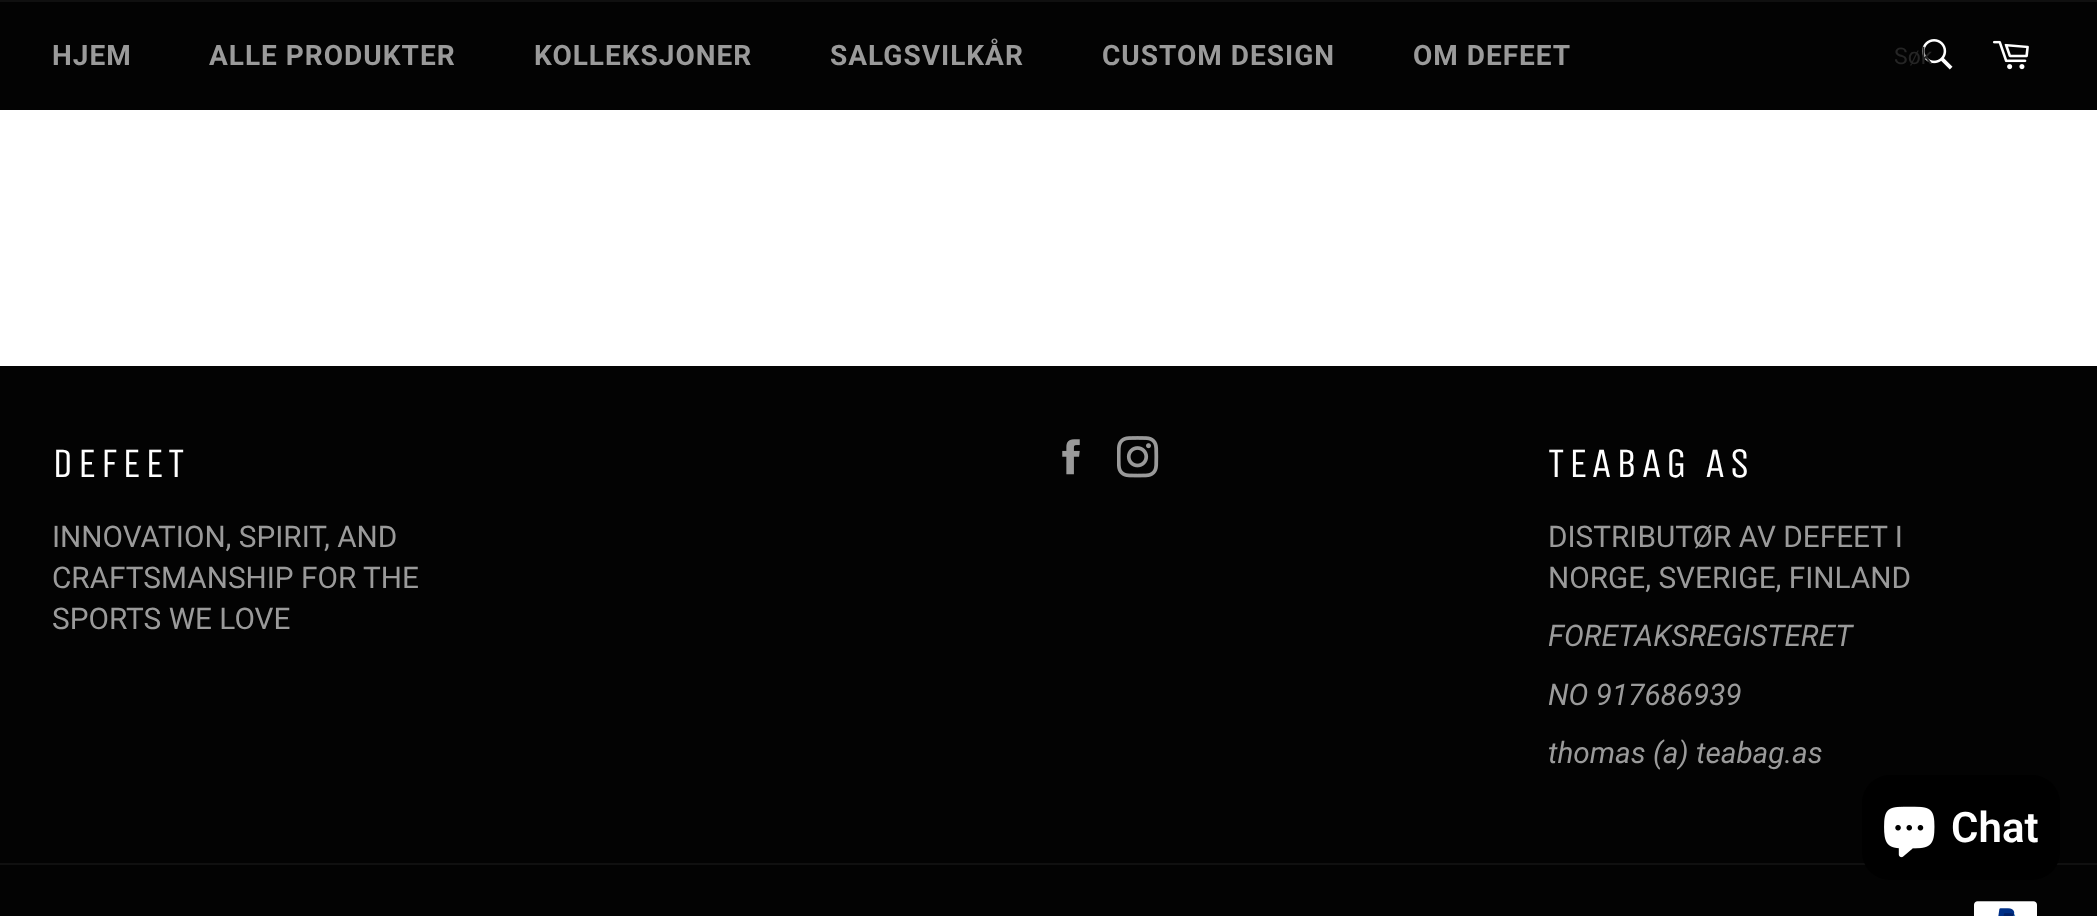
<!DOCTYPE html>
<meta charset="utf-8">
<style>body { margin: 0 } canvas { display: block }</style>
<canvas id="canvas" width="2097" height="916"></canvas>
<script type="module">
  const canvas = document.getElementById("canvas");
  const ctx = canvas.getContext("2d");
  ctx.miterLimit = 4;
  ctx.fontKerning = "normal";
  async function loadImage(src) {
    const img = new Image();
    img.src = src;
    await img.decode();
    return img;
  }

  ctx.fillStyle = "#ffffff";
  ctx.fillRect(0, 0, 2097, 916);
  ctx.fillStyle = "#030303";
  ctx.fillRect(0, 2, 2097, 108);
  ctx.fillStyle = "#101010";
  ctx.fillRect(0, 0, 2097, 2);
  ctx.letterSpacing = "1px";
  ctx.font = "bold 28px Roboto";
  ctx.fillStyle = "#9a9a9a";
  ctx.fillText("HJEM", 52, 65);
  ctx.fillText("ALLE PRODUKTER", 209, 65);
  ctx.fillText("KOLLEKSJONER", 534, 65);
  ctx.fillText("SALGSVILKÅR", 830, 65);
  ctx.fillText("CUSTOM DESIGN", 1102, 65);
  ctx.fillText("OM DEFEET", 1413, 65);
  ctx.drawImage(await loadImage("img1.png"), 1922, 39, 31, 31);
  ctx.letterSpacing = "0px";
  ctx.font = "23px Roboto";
  ctx.fillStyle = "#252525";
  ctx.fillText("Søk", 1894, 64);
  ctx.drawImage(await loadImage("img2.png"), 1992, 40, 37, 30);
  ctx.fillStyle = "#030303";
  ctx.fillRect(0, 366, 2097, 550);
  ctx.letterSpacing = "4.25px";
  ctx.font = "42px Unica One";
  ctx.fillStyle = "#ffffff";
  ctx.fillText("DEFEET", 52, 477);
  ctx.letterSpacing = "0px";
  ctx.font = "29.75px Roboto";
  ctx.fillStyle = "#9a9a9a";
  ctx.fillText("INNOVATION, SPIRIT, AND", 52, 547);
  ctx.fillText("CRAFTSMANSHIP FOR THE", 52, 588);
  ctx.fillText("SPORTS WE LOVE", 52, 629);
  ctx.drawImage(await loadImage("img3.png"), 1062, 439, 18, 36);
  ctx.drawImage(await loadImage("img4.png"), 1117, 436, 42, 42);
  ctx.letterSpacing = "4.25px";
  ctx.font = "42px Unica One";
  ctx.fillStyle = "#ffffff";
  ctx.fillText("TEABAG AS", 1548, 477);
  ctx.letterSpacing = "0px";
  ctx.font = "29.75px Roboto";
  ctx.fillStyle = "#9a9a9a";
  ctx.fillText("DISTRIBUTØR AV DEFEET I", 1548, 547);
  ctx.fillText("NORGE, SVERIGE, FINLAND", 1548, 588);
  ctx.font = "italic 29.75px Roboto";
  ctx.fillText("FORETAKSREGISTERET", 1548, 646);
  ctx.fillText("NO 917686939", 1548, 705);
  ctx.fillText("thomas (a) teabag.as", 1548, 763);
  ctx.fillStyle = "#101010";
  ctx.fillRect(0, 863, 2097, 2);
  ctx.drawImage(await loadImage("img5.png"), 1974, 901, 63, 15);
  ctx.fillStyle = "#000000";
  ctx.beginPath();
  ctx.roundRect(1862, 775, 198, 105, 28);
  ctx.fill();
  ctx.drawImage(await loadImage("img6.png"), 1884, 806, 51, 52);
  ctx.font = "600 42px Roboto";
  ctx.fillStyle = "#ffffff";
  ctx.fillText("Chat", 1951, 842);
</script>
